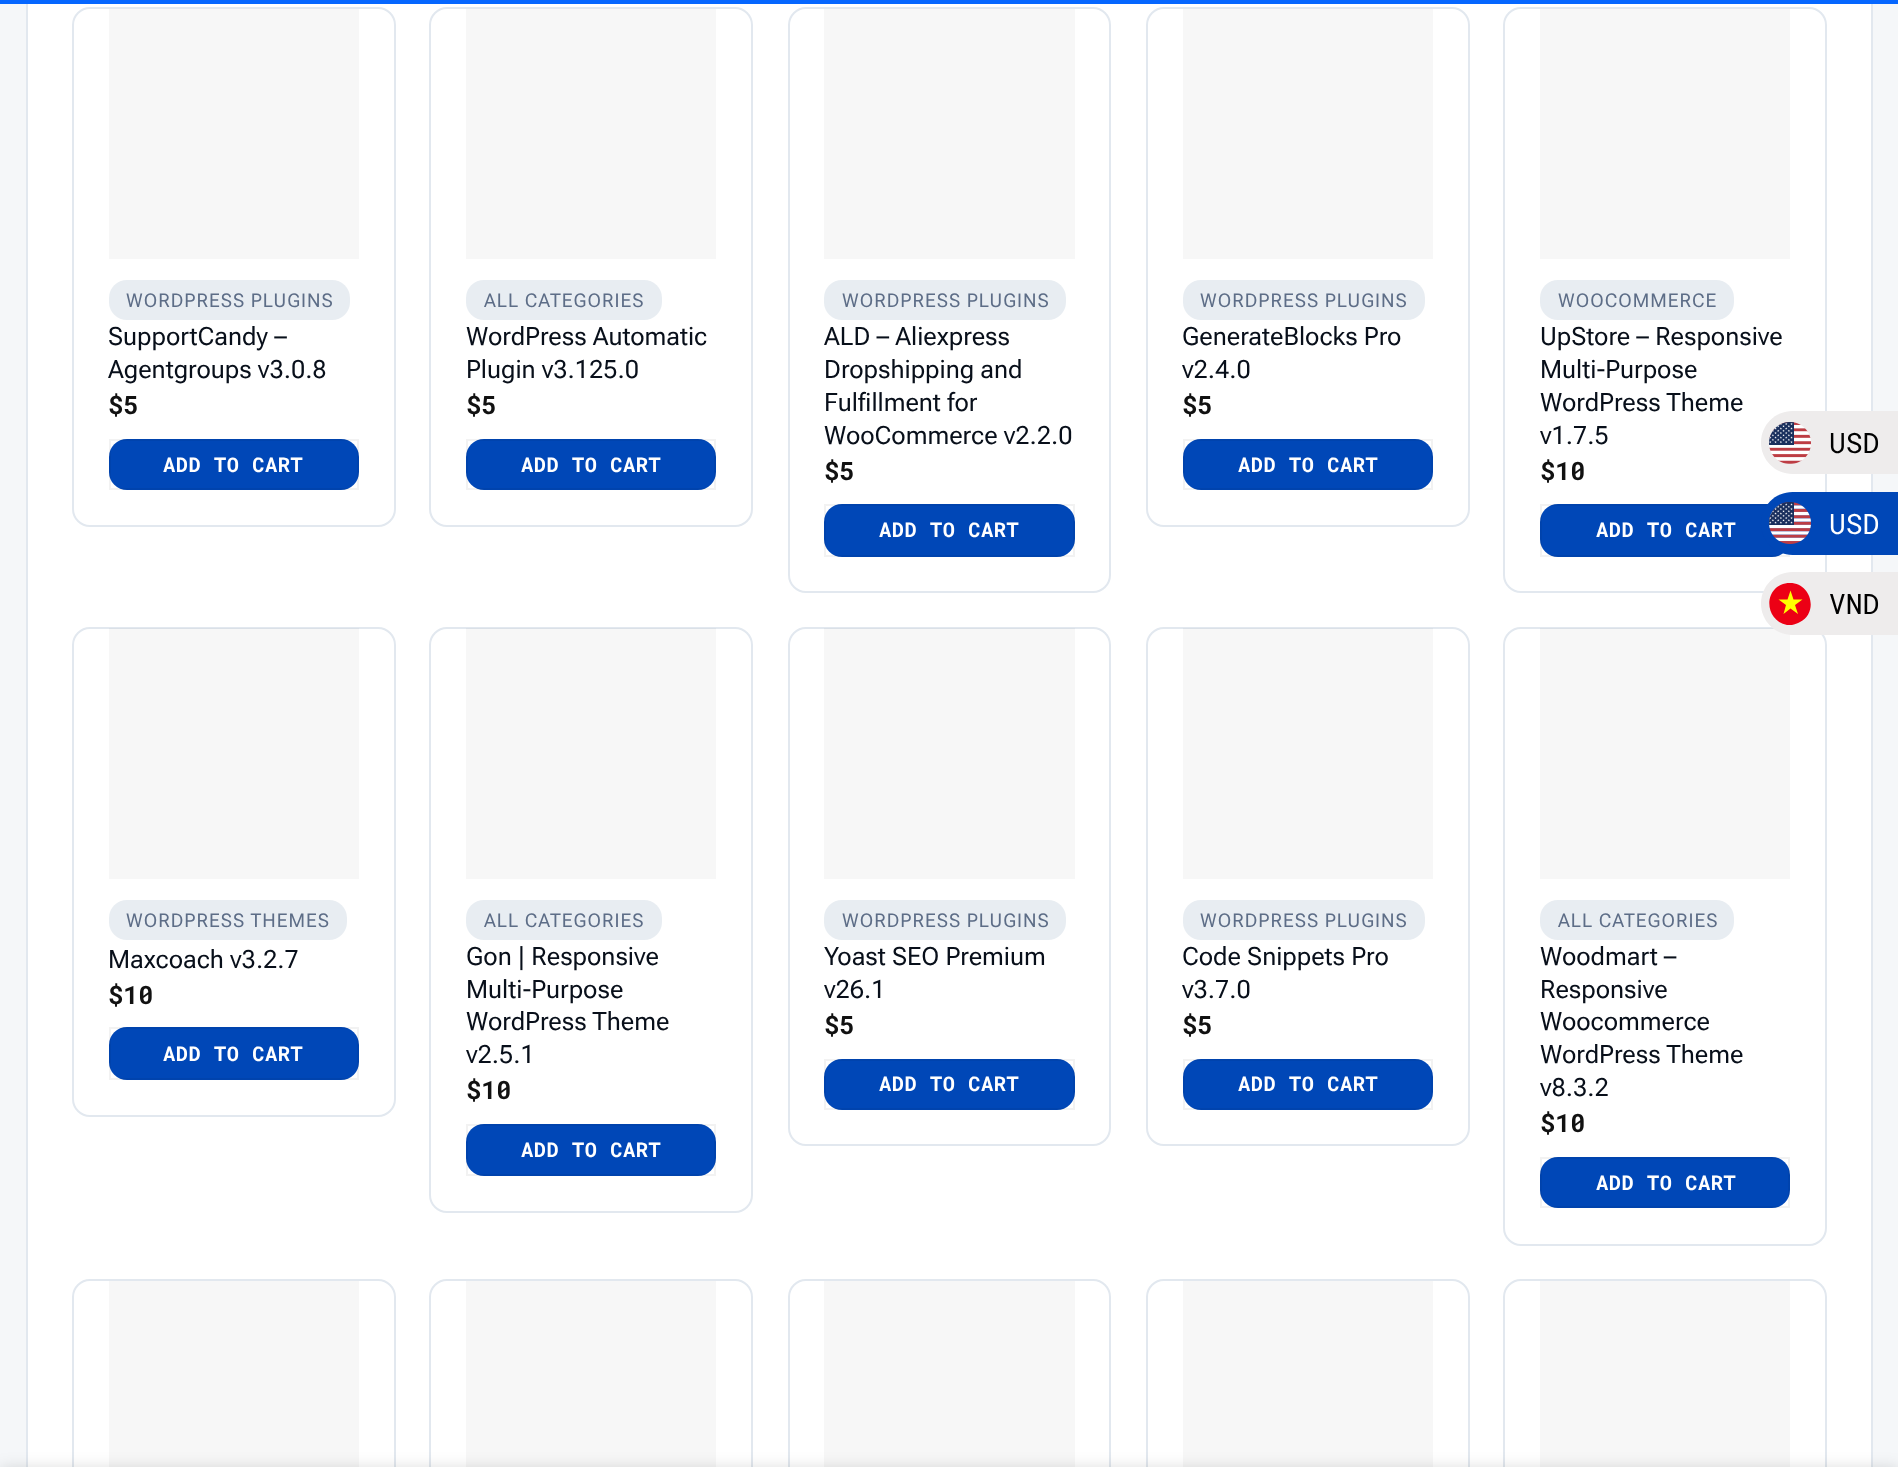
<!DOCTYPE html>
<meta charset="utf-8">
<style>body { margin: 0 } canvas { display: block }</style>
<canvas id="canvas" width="1898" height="1467"></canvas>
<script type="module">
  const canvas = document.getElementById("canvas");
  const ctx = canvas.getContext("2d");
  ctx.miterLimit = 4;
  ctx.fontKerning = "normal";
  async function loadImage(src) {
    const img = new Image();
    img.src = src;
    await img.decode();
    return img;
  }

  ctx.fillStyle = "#f5f7f9";
  ctx.fillRect(0, 0, 1898, 1467);
  ctx.fillStyle = "#ffffff";
  ctx.fillRect(28, 4, 1843, 1463);
  ctx.strokeStyle = "#e2e8ef";
  ctx.lineWidth = 2;
  ctx.strokeRect(27, -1, 1845, 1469);
  ctx.fillStyle = "#0566ff";
  ctx.fillRect(0, 0, 1898, 4);
  ctx.beginPath();
  ctx.roundRect(73, 8, 322, 518, 17);
  ctx.stroke();
  ctx.fillStyle = "#f7f7f7";
  ctx.fillRect(109, 9, 250, 250);
  ctx.fillStyle = "#e8edf2";
  ctx.beginPath();
  ctx.roundRect(109, 280, 241, 40, 18);
  ctx.fill();
  ctx.letterSpacing = "1px";
  ctx.font = "18.9px Roboto Flex";
  ctx.fillStyle = "#5d6d87";
  ctx.fillText("WORDPRESS PLUGINS", 126, 307);
  ctx.letterSpacing = "0px";
  ctx.font = "25.25px Roboto Flex";
  ctx.fillStyle = "#080f1a";
  ctx.fillText("SupportCandy –", 108, 345);
  ctx.fillText("Agentgroups v3.0.8", 108, 378);
  ctx.font = "bold 25.25px Roboto Mono";
  ctx.fillStyle = "#111111";
  ctx.fillText("$5", 108, 414);
  ctx.fillStyle = "#0047b7";
  ctx.beginPath();
  ctx.roundRect(109, 439, 250, 51, 18);
  ctx.fill();
  ctx.strokeStyle = "rgba(0, 0, 0, 0.05)";
  ctx.strokeRect(110, 440, 248, 49);
  ctx.letterSpacing = "0.6px";
  ctx.font = "bold 20.25px Roboto Mono";
  ctx.fillStyle = "#ffffff";
  ctx.fillText("ADD TO CART", 163, 472);
  ctx.beginPath();
  ctx.roundRect(430, 8, 322, 518, 17);
  ctx.strokeStyle = "#e2e8ef";
  ctx.stroke();
  ctx.fillStyle = "#f7f7f7";
  ctx.fillRect(466, 9, 250, 250);
  ctx.fillStyle = "#e8edf2";
  ctx.beginPath();
  ctx.roundRect(466, 280, 196, 40, 18);
  ctx.fill();
  ctx.letterSpacing = "1px";
  ctx.font = "18.9px Roboto Flex";
  ctx.fillStyle = "#5d6d87";
  ctx.fillText("ALL CATEGORIES", 484, 307);
  ctx.letterSpacing = "0px";
  ctx.font = "25.25px Roboto Flex";
  ctx.fillStyle = "#080f1a";
  ctx.fillText("WordPress Automatic", 466, 345);
  ctx.fillText("Plugin v3.125.0", 466, 378);
  ctx.font = "bold 25.25px Roboto Mono";
  ctx.fillStyle = "#111111";
  ctx.fillText("$5", 466, 414);
  ctx.fillStyle = "#0047b7";
  ctx.beginPath();
  ctx.roundRect(466, 439, 250, 51, 18);
  ctx.fill();
  ctx.strokeStyle = "rgba(0, 0, 0, 0.05)";
  ctx.strokeRect(467, 440, 248, 49);
  ctx.letterSpacing = "0.6px";
  ctx.font = "bold 20.25px Roboto Mono";
  ctx.fillStyle = "#ffffff";
  ctx.fillText("ADD TO CART", 521, 472);
  ctx.beginPath();
  ctx.roundRect(789, 8, 321, 584, 17);
  ctx.strokeStyle = "#e2e8ef";
  ctx.stroke();
  ctx.fillStyle = "#f7f7f7";
  ctx.fillRect(824, 9, 251, 250);
  ctx.fillStyle = "#e8edf2";
  ctx.beginPath();
  ctx.roundRect(824, 280, 242, 40, 18);
  ctx.fill();
  ctx.letterSpacing = "1px";
  ctx.font = "18.9px Roboto Flex";
  ctx.fillStyle = "#5d6d87";
  ctx.fillText("WORDPRESS PLUGINS", 842, 307);
  ctx.letterSpacing = "0px";
  ctx.font = "25.25px Roboto Flex";
  ctx.fillStyle = "#080f1a";
  ctx.fillText("ALD – Aliexpress", 824, 345);
  ctx.fillText("Dropshipping and", 824, 378);
  ctx.fillText("Fulfillment for", 824, 411);
  ctx.fillText("WooCommerce v2.2.0", 824, 444);
  ctx.font = "bold 25.25px Roboto Mono";
  ctx.fillStyle = "#111111";
  ctx.fillText("$5", 824, 480);
  ctx.fillStyle = "#0047b7";
  ctx.beginPath();
  ctx.roundRect(824, 504, 251, 53, 18);
  ctx.fill();
  ctx.strokeStyle = "rgba(0, 0, 0, 0.05)";
  ctx.strokeRect(825, 505, 249, 51);
  ctx.letterSpacing = "0.6px";
  ctx.font = "bold 20.25px Roboto Mono";
  ctx.fillStyle = "#ffffff";
  ctx.fillText("ADD TO CART", 879, 537);
  ctx.beginPath();
  ctx.roundRect(1147, 8, 322, 518, 17);
  ctx.strokeStyle = "#e2e8ef";
  ctx.stroke();
  ctx.fillStyle = "#f7f7f7";
  ctx.fillRect(1183, 9, 250, 250);
  ctx.fillStyle = "#e8edf2";
  ctx.beginPath();
  ctx.roundRect(1183, 280, 242, 40, 18);
  ctx.fill();
  ctx.letterSpacing = "1px";
  ctx.font = "18.9px Roboto Flex";
  ctx.fillStyle = "#5d6d87";
  ctx.fillText("WORDPRESS PLUGINS", 1200, 307);
  ctx.letterSpacing = "0px";
  ctx.font = "25.25px Roboto Flex";
  ctx.fillStyle = "#080f1a";
  ctx.fillText("GenerateBlocks Pro", 1182, 345);
  ctx.fillText("v2.4.0", 1182, 378);
  ctx.font = "bold 25.25px Roboto Mono";
  ctx.fillStyle = "#111111";
  ctx.fillText("$5", 1182, 414);
  ctx.fillStyle = "#0047b7";
  ctx.beginPath();
  ctx.roundRect(1183, 439, 250, 51, 18);
  ctx.fill();
  ctx.strokeStyle = "rgba(0, 0, 0, 0.05)";
  ctx.strokeRect(1184, 440, 248, 49);
  ctx.letterSpacing = "0.6px";
  ctx.font = "bold 20.25px Roboto Mono";
  ctx.fillStyle = "#ffffff";
  ctx.fillText("ADD TO CART", 1238, 472);
  ctx.beginPath();
  ctx.roundRect(1504, 8, 322, 584, 17);
  ctx.strokeStyle = "#e2e8ef";
  ctx.stroke();
  ctx.fillStyle = "#f7f7f7";
  ctx.fillRect(1540, 9, 250, 250);
  ctx.fillStyle = "#e8edf2";
  ctx.beginPath();
  ctx.roundRect(1540, 280, 194, 40, 18);
  ctx.fill();
  ctx.letterSpacing = "1px";
  ctx.font = "18.9px Roboto Flex";
  ctx.fillStyle = "#5d6d87";
  ctx.fillText("WOOCOMMERCE", 1558, 307);
  ctx.letterSpacing = "0px";
  ctx.font = "25.25px Roboto Flex";
  ctx.fillStyle = "#080f1a";
  ctx.fillText("UpStore – Responsive", 1540, 345);
  ctx.fillText("Multi-Purpose", 1540, 378);
  ctx.fillText("WordPress Theme", 1540, 411);
  ctx.fillText("v1.7.5", 1540, 444);
  ctx.font = "bold 25.25px Roboto Mono";
  ctx.fillStyle = "#111111";
  ctx.fillText("$10", 1540, 480);
  ctx.fillStyle = "#0047b7";
  ctx.beginPath();
  ctx.roundRect(1540, 504, 250, 53, 18);
  ctx.fill();
  ctx.strokeStyle = "rgba(0, 0, 0, 0.05)";
  ctx.strokeRect(1541, 505, 248, 51);
  ctx.letterSpacing = "0.6px";
  ctx.font = "bold 20.25px Roboto Mono";
  ctx.fillStyle = "#ffffff";
  ctx.fillText("ADD TO CART", 1596, 537);
  ctx.beginPath();
  ctx.roundRect(73, 628, 322, 488, 17);
  ctx.strokeStyle = "#e2e8ef";
  ctx.stroke();
  ctx.fillStyle = "rgba(0, 0, 0, 0.03)";
  ctx.fillRect(109, 628, 250, 251);
  ctx.fillStyle = "#e8edf2";
  ctx.beginPath();
  ctx.roundRect(109, 900, 238, 40, 18);
  ctx.fill();
  ctx.letterSpacing = "1px";
  ctx.font = "18.9px Roboto Flex";
  ctx.fillStyle = "#5d6d87";
  ctx.fillText("WORDPRESS THEMES", 126, 927);
  ctx.letterSpacing = "0px";
  ctx.font = "25.25px Roboto Flex";
  ctx.fillStyle = "#080f1a";
  ctx.fillText("Maxcoach v3.2.7", 108, 968);
  ctx.font = "bold 25.25px Roboto Mono";
  ctx.fillStyle = "#111111";
  ctx.fillText("$10", 108, 1004);
  ctx.fillStyle = "#0047b7";
  ctx.beginPath();
  ctx.roundRect(109, 1027, 250, 53, 18);
  ctx.fill();
  ctx.strokeStyle = "rgba(0, 0, 0, 0.05)";
  ctx.strokeRect(110, 1028, 248, 51);
  ctx.letterSpacing = "0.6px";
  ctx.font = "bold 20.25px Roboto Mono";
  ctx.fillStyle = "#ffffff";
  ctx.fillText("ADD TO CART", 163, 1061);
  ctx.beginPath();
  ctx.roundRect(430, 628, 322, 584, 17);
  ctx.strokeStyle = "#e2e8ef";
  ctx.stroke();
  ctx.fillStyle = "rgba(0, 0, 0, 0.03)";
  ctx.fillRect(466, 628, 250, 251);
  ctx.fillStyle = "#e8edf2";
  ctx.beginPath();
  ctx.roundRect(466, 900, 196, 40, 18);
  ctx.fill();
  ctx.letterSpacing = "1px";
  ctx.font = "18.9px Roboto Flex";
  ctx.fillStyle = "#5d6d87";
  ctx.fillText("ALL CATEGORIES", 484, 927);
  ctx.letterSpacing = "0px";
  ctx.font = "25.25px Roboto Flex";
  ctx.fillStyle = "#080f1a";
  ctx.fillText("Gon | Responsive", 466, 965);
  ctx.fillText("Multi-Purpose", 466, 998);
  ctx.fillText("WordPress Theme", 466, 1030);
  ctx.fillText("v2.5.1", 466, 1063);
  ctx.font = "bold 25.25px Roboto Mono";
  ctx.fillStyle = "#111111";
  ctx.fillText("$10", 466, 1099);
  ctx.fillStyle = "#0047b7";
  ctx.beginPath();
  ctx.roundRect(466, 1124, 250, 52, 18);
  ctx.fill();
  ctx.strokeStyle = "rgba(0, 0, 0, 0.05)";
  ctx.strokeRect(467, 1125, 248, 50);
  ctx.letterSpacing = "0.6px";
  ctx.font = "bold 20.25px Roboto Mono";
  ctx.fillStyle = "#ffffff";
  ctx.fillText("ADD TO CART", 521, 1157);
  ctx.beginPath();
  ctx.roundRect(789, 628, 321, 517, 17);
  ctx.strokeStyle = "#e2e8ef";
  ctx.stroke();
  ctx.fillStyle = "rgba(0, 0, 0, 0.03)";
  ctx.fillRect(824, 628, 251, 251);
  ctx.fillStyle = "#e8edf2";
  ctx.beginPath();
  ctx.roundRect(824, 900, 242, 40, 18);
  ctx.fill();
  ctx.letterSpacing = "1px";
  ctx.font = "18.9px Roboto Flex";
  ctx.fillStyle = "#5d6d87";
  ctx.fillText("WORDPRESS PLUGINS", 842, 927);
  ctx.letterSpacing = "0px";
  ctx.font = "25.25px Roboto Flex";
  ctx.fillStyle = "#080f1a";
  ctx.fillText("Yoast SEO Premium", 824, 965);
  ctx.fillText("v26.1", 824, 998);
  ctx.font = "bold 25.25px Roboto Mono";
  ctx.fillStyle = "#111111";
  ctx.fillText("$5", 824, 1034);
  ctx.fillStyle = "#0047b7";
  ctx.beginPath();
  ctx.roundRect(824, 1059, 251, 51, 18);
  ctx.fill();
  ctx.strokeStyle = "rgba(0, 0, 0, 0.05)";
  ctx.strokeRect(825, 1060, 249, 49);
  ctx.letterSpacing = "0.6px";
  ctx.font = "bold 20.25px Roboto Mono";
  ctx.fillStyle = "#ffffff";
  ctx.fillText("ADD TO CART", 879, 1091);
  ctx.beginPath();
  ctx.roundRect(1147, 628, 322, 517, 17);
  ctx.strokeStyle = "#e2e8ef";
  ctx.stroke();
  ctx.fillStyle = "rgba(0, 0, 0, 0.03)";
  ctx.fillRect(1183, 628, 250, 251);
  ctx.fillStyle = "#e8edf2";
  ctx.beginPath();
  ctx.roundRect(1183, 900, 242, 40, 18);
  ctx.fill();
  ctx.letterSpacing = "1px";
  ctx.font = "18.9px Roboto Flex";
  ctx.fillStyle = "#5d6d87";
  ctx.fillText("WORDPRESS PLUGINS", 1200, 927);
  ctx.letterSpacing = "0px";
  ctx.font = "25.25px Roboto Flex";
  ctx.fillStyle = "#080f1a";
  ctx.fillText("Code Snippets Pro", 1182, 965);
  ctx.fillText("v3.7.0", 1182, 998);
  ctx.font = "bold 25.25px Roboto Mono";
  ctx.fillStyle = "#111111";
  ctx.fillText("$5", 1182, 1034);
  ctx.fillStyle = "#0047b7";
  ctx.beginPath();
  ctx.roundRect(1183, 1059, 250, 51, 18);
  ctx.fill();
  ctx.strokeStyle = "rgba(0, 0, 0, 0.05)";
  ctx.strokeRect(1184, 1060, 248, 49);
  ctx.letterSpacing = "0.6px";
  ctx.font = "bold 20.25px Roboto Mono";
  ctx.fillStyle = "#ffffff";
  ctx.fillText("ADD TO CART", 1238, 1091);
  ctx.beginPath();
  ctx.roundRect(1504, 628, 322, 617, 17);
  ctx.strokeStyle = "#e2e8ef";
  ctx.stroke();
  ctx.fillStyle = "rgba(0, 0, 0, 0.03)";
  ctx.fillRect(1540, 628, 250, 251);
  ctx.fillStyle = "#e8edf2";
  ctx.beginPath();
  ctx.roundRect(1540, 900, 194, 40, 18);
  ctx.fill();
  ctx.letterSpacing = "1px";
  ctx.font = "18.9px Roboto Flex";
  ctx.fillStyle = "#5d6d87";
  ctx.fillText("ALL CATEGORIES", 1558, 927);
  ctx.letterSpacing = "0px";
  ctx.font = "25.25px Roboto Flex";
  ctx.fillStyle = "#080f1a";
  ctx.fillText("Woodmart –", 1540, 965);
  ctx.fillText("Responsive", 1540, 998);
  ctx.fillText("Woocommerce", 1540, 1030);
  ctx.fillText("WordPress Theme", 1540, 1063);
  ctx.fillText("v8.3.2", 1540, 1096);
  ctx.font = "bold 25.25px Roboto Mono";
  ctx.fillStyle = "#111111";
  ctx.fillText("$10", 1540, 1132);
  ctx.fillStyle = "#0047b7";
  ctx.beginPath();
  ctx.roundRect(1540, 1157, 250, 51, 18);
  ctx.fill();
  ctx.strokeStyle = "rgba(0, 0, 0, 0.05)";
  ctx.strokeRect(1541, 1158, 248, 49);
  ctx.letterSpacing = "0.6px";
  ctx.font = "bold 20.25px Roboto Mono";
  ctx.fillStyle = "#ffffff";
  ctx.fillText("ADD TO CART", 1596, 1190);
  ctx.beginPath();
  ctx.roundRect(73, 1280, 322, 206, 17);
  ctx.strokeStyle = "#e2e8ef";
  ctx.stroke();
  ctx.fillStyle = "#f7f7f7";
  ctx.fillRect(109, 1281, 250, 186);
  ctx.beginPath();
  ctx.roundRect(430, 1280, 322, 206, 17);
  ctx.stroke();
  ctx.fillRect(466, 1281, 250, 186);
  ctx.beginPath();
  ctx.roundRect(789, 1280, 321, 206, 17);
  ctx.stroke();
  ctx.fillRect(824, 1281, 251, 186);
  ctx.beginPath();
  ctx.roundRect(1147, 1280, 322, 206, 17);
  ctx.stroke();
  ctx.fillRect(1183, 1281, 250, 186);
  ctx.beginPath();
  ctx.roundRect(1504, 1280, 322, 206, 17);
  ctx.stroke();
  ctx.fillRect(1540, 1281, 250, 186);
  ctx.fillStyle = "#eeecec";
  ctx.beginPath();
  ctx.moveTo(1792.5, 411);
  ctx.lineTo(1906, 411);
  ctx.lineTo(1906, 474);
  ctx.lineTo(1792.5, 474);
  ctx.bezierCurveTo(1775, 474, 1761, 460, 1761, 442.5);
  ctx.bezierCurveTo(1761, 425, 1775, 411, 1792.5, 411);
  ctx.closePath();
  ctx.fill();
  ctx.drawImage(await loadImage("img1.png"), 1769, 422, 42, 42);
  ctx.letterSpacing = "0px";
  ctx.font = "28px Roboto Mono";
  ctx.fillStyle = "#000000";
  ctx.fillText("USD", 1829, 453);
  ctx.fillStyle = "#0047b7";
  ctx.beginPath();
  ctx.moveTo(1792.5, 492);
  ctx.lineTo(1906, 492);
  ctx.lineTo(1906, 555);
  ctx.lineTo(1792.5, 555);
  ctx.bezierCurveTo(1775, 555, 1761, 541, 1761, 523.5);
  ctx.bezierCurveTo(1761, 506, 1775, 492, 1792.5, 492);
  ctx.closePath();
  ctx.fill();
  ctx.drawImage(await loadImage("img2.png"), 1769, 502, 42, 42);
  ctx.fillStyle = "#ffffff";
  ctx.fillText("USD", 1829, 534);
  ctx.fillStyle = "#eeecec";
  ctx.beginPath();
  ctx.moveTo(1792.5, 572);
  ctx.lineTo(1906, 572);
  ctx.lineTo(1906, 635);
  ctx.lineTo(1792.5, 635);
  ctx.bezierCurveTo(1775, 635, 1761, 621, 1761, 603.5);
  ctx.bezierCurveTo(1761, 586, 1775, 572, 1792.5, 572);
  ctx.closePath();
  ctx.fill();
  ctx.save();
  ctx.beginPath();
  ctx.rect(1762, 583, 56, 42);
  ctx.clip();
  ctx.fillStyle = "#ec0015";
  ctx.beginPath();
  ctx.moveTo(1790, 583);
  ctx.bezierCurveTo(1811, 583, 1819, 612, 1800, 622);
  ctx.bezierCurveTo(1796, 624, 1791, 626, 1787, 625);
  ctx.bezierCurveTo(1762, 620, 1764, 583, 1790, 583);
  ctx.closePath();
  ctx.fill();
  ctx.restore();
  ctx.fillStyle = "#ffff00";
  ctx.beginPath();
  ctx.moveTo(1798, 614);
  ctx.lineTo(1790.5, 608.5);
  ctx.lineTo(1783.5, 614);
  ctx.lineTo(1786, 605);
  ctx.lineTo(1778.5, 599.5);
  ctx.lineTo(1787.5, 599.5);
  ctx.lineTo(1790.5, 590.5);
  ctx.lineTo(1793.5, 599.5);
  ctx.lineTo(1802.5, 599.5);
  ctx.lineTo(1795, 605);
  ctx.closePath();
  ctx.fill("evenodd");
  ctx.fillStyle = "#000000";
  ctx.fillText("VND", 1829, 614);
  ctx.fillStyle = "rgba(0, 0, 0, 0.14)";
  ctx.filter = "blur(8px)";
  ctx.beginPath();
  ctx.rect(0, 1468, 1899, 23);
  ctx.fill();
  ctx.filter = "none";
</script>
